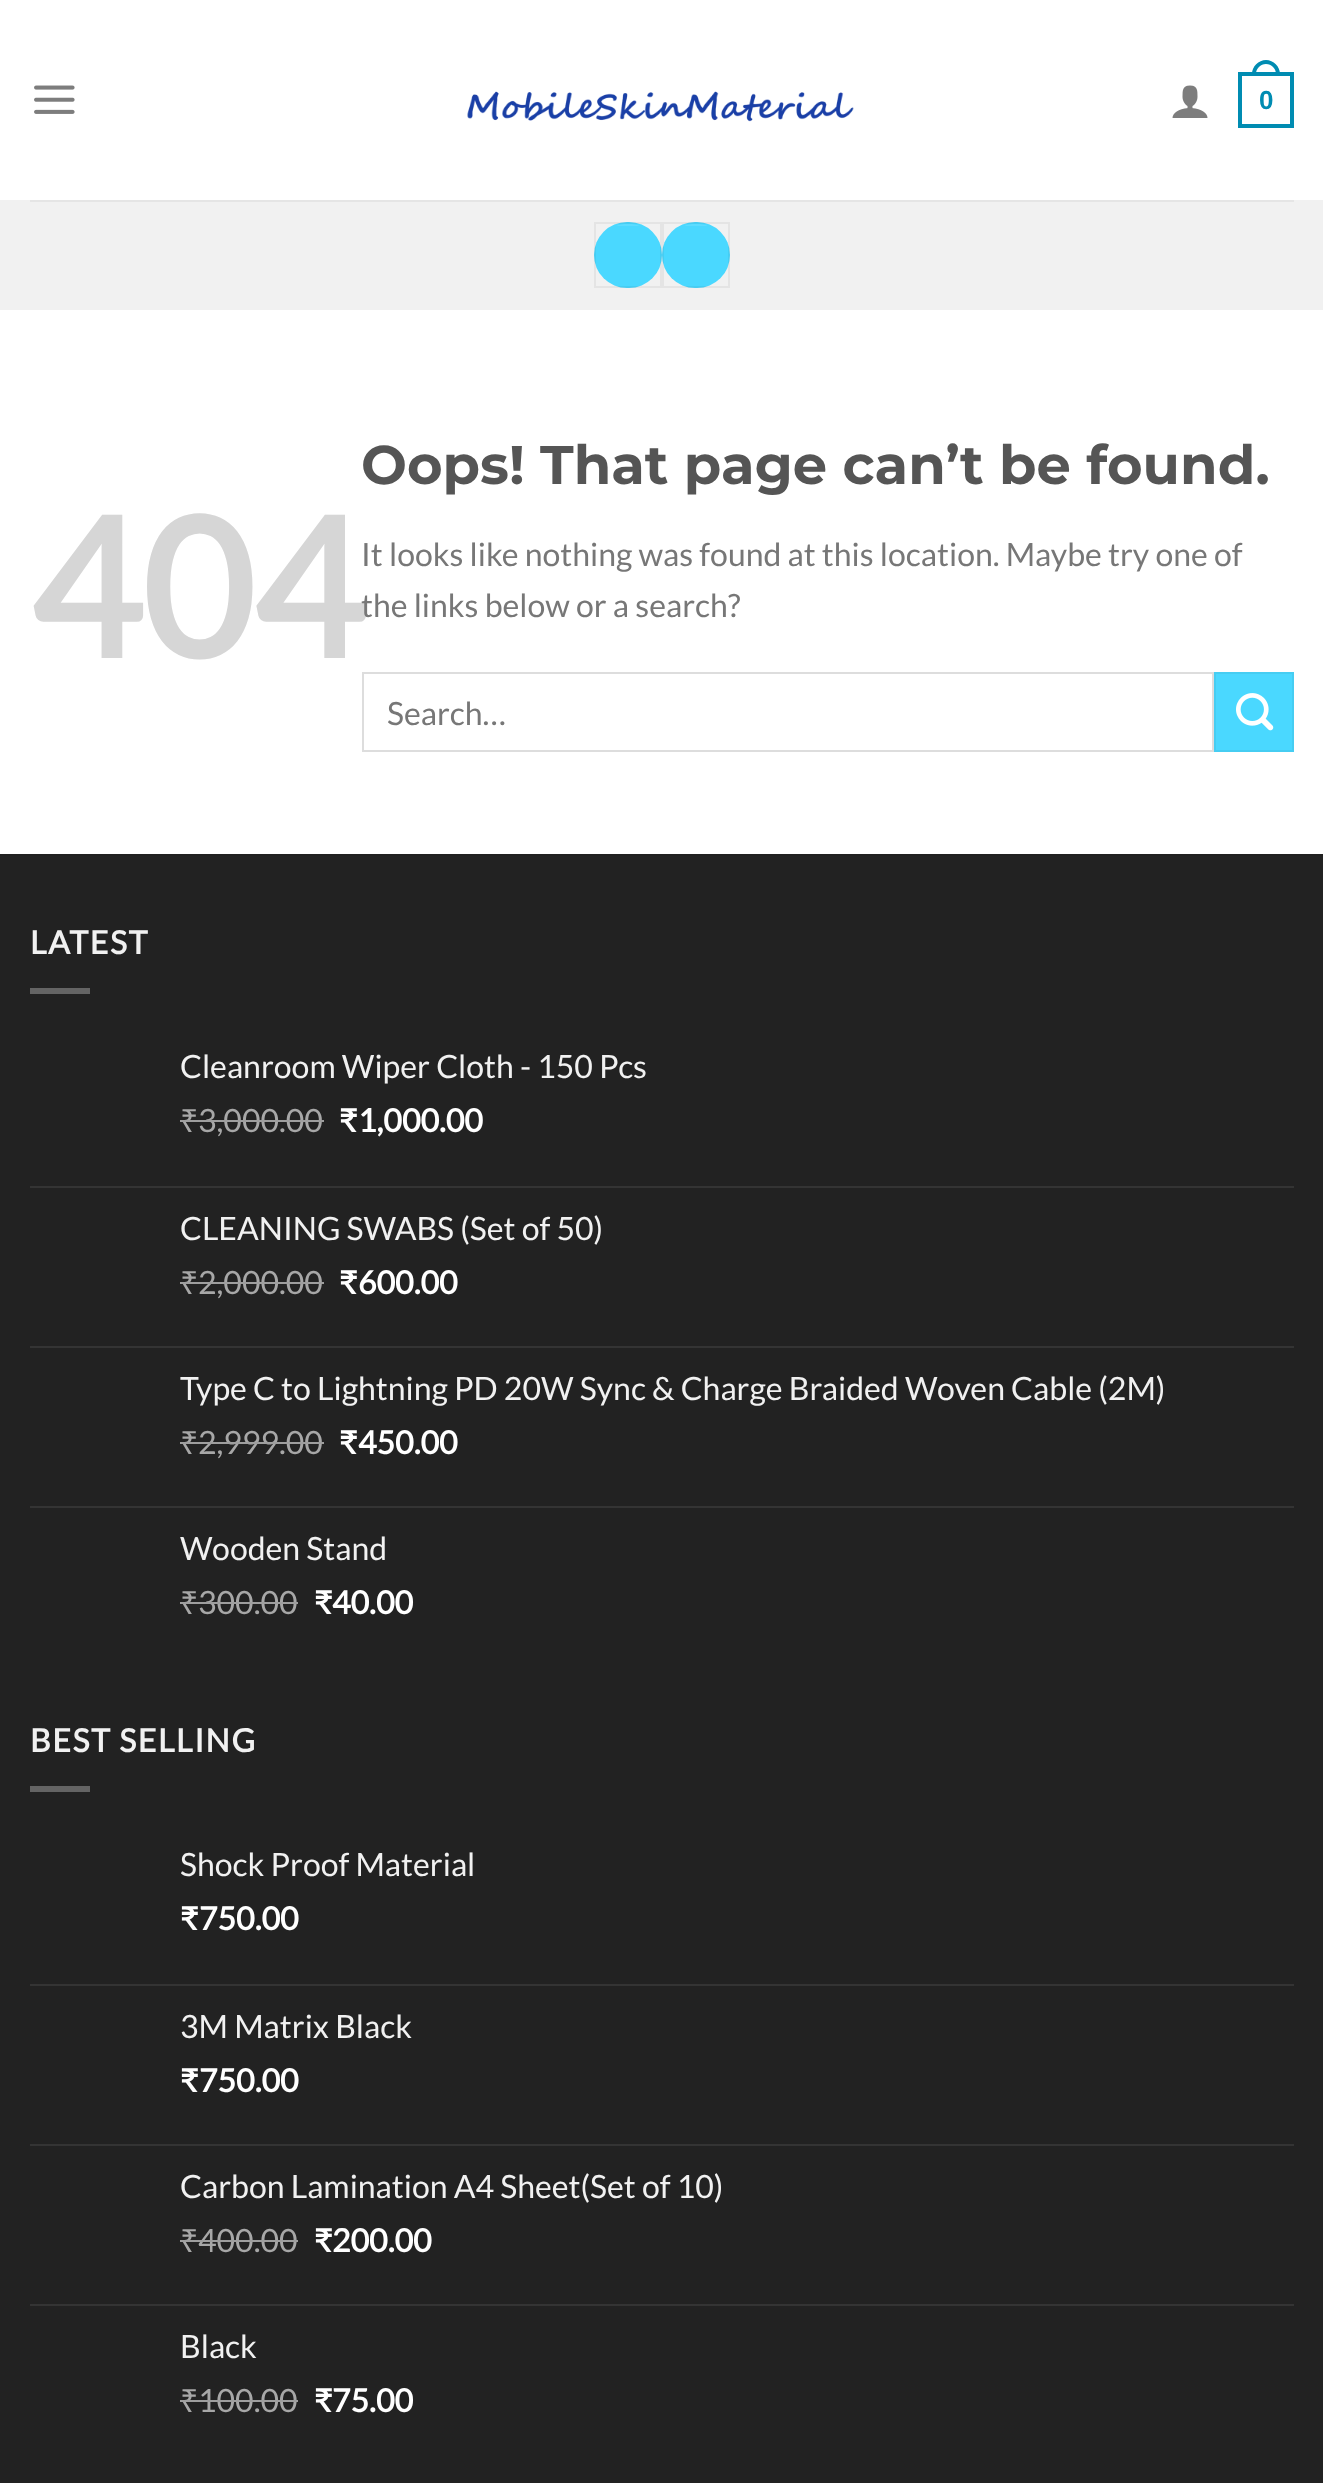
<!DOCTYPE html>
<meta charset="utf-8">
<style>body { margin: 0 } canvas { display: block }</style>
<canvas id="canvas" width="1323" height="2483"></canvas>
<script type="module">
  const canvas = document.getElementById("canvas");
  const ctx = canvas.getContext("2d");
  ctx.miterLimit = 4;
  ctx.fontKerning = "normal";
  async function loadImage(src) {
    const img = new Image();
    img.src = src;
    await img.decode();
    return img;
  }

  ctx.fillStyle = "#ffffff";
  ctx.fillRect(0, 0, 1323, 2483);
  ctx.drawImage(await loadImage("img1.png"), 34, 85, 41, 29);
  ctx.drawImage(await loadImage("img2.png"), 467, 91, 387, 31);
  ctx.drawImage(await loadImage("img3.png"), 1172, 85, 36, 33);
  ctx.strokeStyle = "#008cb2";
  ctx.lineWidth = 4;
  ctx.strokeRect(1240, 74, 52, 52);
  ctx.fillStyle = "#008cb2";
  ctx.beginPath();
  ctx.moveTo(1266, 60);
  ctx.bezierCurveTo(1273.5, 60, 1280, 66.5, 1280, 74);
  ctx.lineTo(1280, 76);
  ctx.lineTo(1252, 76);
  ctx.lineTo(1252, 74);
  ctx.bezierCurveTo(1252, 66.5, 1258.5, 60, 1266, 60);
  ctx.closePath();
  ctx.moveTo(1266, 64);
  ctx.bezierCurveTo(1271.5, 64, 1276, 68.5, 1276, 74);
  ctx.lineTo(1276, 76);
  ctx.lineTo(1256, 76);
  ctx.lineTo(1256, 74);
  ctx.bezierCurveTo(1256, 68.5, 1260.5, 64, 1266, 64);
  ctx.closePath();
  ctx.fill("evenodd");
  ctx.font = "bold 26px Liberation Sans";
  ctx.fillText("0", 1259, 109);
  ctx.fillStyle = "#f1f1f1";
  ctx.fillRect(0, 200, 1323, 110);
  ctx.fillStyle = "#e5e5e5";
  ctx.fillRect(30, 200, 1264, 2);
  ctx.fillStyle = "#4ad8ff";
  ctx.beginPath();
  ctx.roundRect(594, 222, 68, 66, 33);
  ctx.fill();
  ctx.strokeStyle = "rgba(0, 0, 0, 0.05)";
  ctx.lineWidth = 2;
  ctx.strokeRect(595, 223, 66, 64);
  ctx.fillStyle = "rgba(255, 255, 255, 0.1)";
  ctx.beginPath();
  ctx.moveTo(627, 224);
  ctx.bezierCurveTo(623, 224, 619.5, 224.5, 616, 226);
  ctx.lineTo(640, 226);
  ctx.bezierCurveTo(636.5, 224.5, 633, 224, 629, 224);
  ctx.closePath();
  ctx.fill();
  ctx.fillStyle = "#4ad8ff";
  ctx.beginPath();
  ctx.roundRect(662, 222, 68, 66, 33);
  ctx.fill();
  ctx.strokeRect(663, 223, 66, 64);
  ctx.fillStyle = "rgba(255, 255, 255, 0.1)";
  ctx.beginPath();
  ctx.moveTo(695, 224);
  ctx.bezierCurveTo(691, 224, 687.5, 224.5, 684, 226);
  ctx.lineTo(708, 226);
  ctx.bezierCurveTo(704.5, 224.5, 701, 224, 697, 224);
  ctx.closePath();
  ctx.fill();
  ctx.font = "bold 192px Lato";
  ctx.fillStyle = "#d6d6d6";
  ctx.fillText("404", 30, 658);
  ctx.font = "bold 54.4px Montserrat";
  ctx.fillStyle = "#555555";
  ctx.fillText("Oops! That page can’t be found.", 361, 484);
  ctx.font = "32px Lato";
  ctx.fillStyle = "#777777";
  ctx.fillText("It looks like nothing was found at this location. Maybe try one of", 361, 566);
  ctx.fillText("the links below or a search?", 361, 617);
  ctx.strokeStyle = "#dddddd";
  ctx.strokeRect(363, 673, 850, 78);
  ctx.fillText("Search…", 387, 725);
  ctx.fillStyle = "#4ad8ff";
  ctx.beginPath();
  ctx.rect(1215, 673, 78, 78);
  ctx.fill();
  ctx.strokeStyle = "#46cdf2";
  ctx.stroke();
  ctx.drawImage(await loadImage("img4.png"), 1236, 693, 38, 38);
  ctx.fillStyle = "#222222";
  ctx.fillRect(0, 856, 1323, 1627);
  ctx.fillStyle = "#202020";
  ctx.fillRect(0, 854, 1323, 2);
  ctx.letterSpacing = "1.6px";
  ctx.font = "bold 32px Lato";
  ctx.fillStyle = "#f1f1f1";
  ctx.fillText("LATEST", 30, 954);
  ctx.fillStyle = "#646464";
  ctx.fillRect(30, 988, 60, 6);
  ctx.letterSpacing = "0px";
  ctx.font = "32px Lato";
  ctx.fillStyle = "#f1f1f1";
  ctx.fillText("Cleanroom Wiper Cloth - 150 Pcs", 180, 1078);
  ctx.font = "32px Noto Sans";
  ctx.fillStyle = "#a7a7a7";
  ctx.fillText("₹", 180, 1132);
  ctx.fillStyle = "#9e9e9e";
  ctx.fillRect(180, 1120, 18, 2);
  ctx.font = "32px Lato";
  ctx.fillStyle = "#a7a7a7";
  ctx.fillText("3,000.00", 198, 1132);
  ctx.fillStyle = "#9e9e9e";
  ctx.fillRect(198, 1120, 126, 2);
  ctx.font = "bold 32px 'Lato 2'";
  ctx.fillStyle = "#ffffff";
  ctx.fillText("₹", 339, 1132);
  ctx.font = "bold 32px Lato";
  ctx.fillText("1,000.00", 358, 1132);
  ctx.fillStyle = "#343434";
  ctx.fillRect(30, 1186, 1264, 2);
  ctx.font = "32px Lato";
  ctx.fillStyle = "#f1f1f1";
  ctx.fillText("CLEANING SWABS (Set of 50)", 180, 1240);
  ctx.font = "32px Noto Sans";
  ctx.fillStyle = "#a7a7a7";
  ctx.fillText("₹", 180, 1294);
  ctx.fillStyle = "#9e9e9e";
  ctx.fillRect(180, 1282, 18, 2);
  ctx.font = "32px Lato";
  ctx.fillStyle = "#a7a7a7";
  ctx.fillText("2,000.00", 198, 1294);
  ctx.fillStyle = "#9e9e9e";
  ctx.fillRect(198, 1282, 126, 2);
  ctx.font = "bold 32px 'Lato 2'";
  ctx.fillStyle = "#ffffff";
  ctx.fillText("₹", 339, 1294);
  ctx.font = "bold 32px Lato";
  ctx.fillText("600.00", 358, 1294);
  ctx.fillStyle = "#343434";
  ctx.fillRect(30, 1346, 1264, 2);
  ctx.font = "32px Lato";
  ctx.fillStyle = "#f1f1f1";
  ctx.fillText("Type C to Lightning PD 20W Sync & Charge Braided Woven Cable (2M)", 180, 1400);
  ctx.font = "32px Noto Sans";
  ctx.fillStyle = "#a7a7a7";
  ctx.fillText("₹", 180, 1454);
  ctx.fillStyle = "#9e9e9e";
  ctx.fillRect(180, 1442, 18, 2);
  ctx.font = "32px Lato";
  ctx.fillStyle = "#a7a7a7";
  ctx.fillText("2,999.00", 198, 1454);
  ctx.fillStyle = "#9e9e9e";
  ctx.fillRect(198, 1442, 126, 2);
  ctx.font = "bold 32px 'Lato 2'";
  ctx.fillStyle = "#ffffff";
  ctx.fillText("₹", 339, 1454);
  ctx.font = "bold 32px Lato";
  ctx.fillText("450.00", 358, 1454);
  ctx.fillStyle = "#343434";
  ctx.fillRect(30, 1506, 1264, 2);
  ctx.font = "32px Lato";
  ctx.fillStyle = "#f1f1f1";
  ctx.fillText("Wooden Stand", 180, 1560);
  ctx.font = "32px Noto Sans";
  ctx.fillStyle = "#a7a7a7";
  ctx.fillText("₹", 180, 1614);
  ctx.fillStyle = "#9e9e9e";
  ctx.fillRect(180, 1602, 18, 2);
  ctx.font = "32px Lato";
  ctx.fillStyle = "#a7a7a7";
  ctx.fillText("300.00", 198, 1614);
  ctx.fillStyle = "#9e9e9e";
  ctx.fillRect(198, 1602, 100, 2);
  ctx.font = "bold 32px 'Lato 2'";
  ctx.fillStyle = "#ffffff";
  ctx.fillText("₹", 314, 1614);
  ctx.font = "bold 32px Lato";
  ctx.fillText("40.00", 332, 1614);
  ctx.letterSpacing = "1.6px";
  ctx.fillStyle = "#f1f1f1";
  ctx.fillText("BEST SELLING", 30, 1752);
  ctx.fillStyle = "#646464";
  ctx.fillRect(30, 1786, 60, 6);
  ctx.letterSpacing = "0px";
  ctx.font = "32px Lato";
  ctx.fillStyle = "#f1f1f1";
  ctx.fillText("Shock Proof Material", 180, 1876);
  ctx.font = "bold 32px 'Lato 2'";
  ctx.fillStyle = "#ffffff";
  ctx.fillText("₹", 180, 1930);
  ctx.font = "bold 32px Lato";
  ctx.fillText("750.00", 199, 1930);
  ctx.fillStyle = "#343434";
  ctx.fillRect(30, 1984, 1264, 2);
  ctx.font = "32px Lato";
  ctx.fillStyle = "#f1f1f1";
  ctx.fillText("3M Matrix Black", 180, 2038);
  ctx.font = "bold 32px 'Lato 2'";
  ctx.fillStyle = "#ffffff";
  ctx.fillText("₹", 180, 2092);
  ctx.font = "bold 32px Lato";
  ctx.fillText("750.00", 199, 2092);
  ctx.fillStyle = "#343434";
  ctx.fillRect(30, 2144, 1264, 2);
  ctx.font = "32px Lato";
  ctx.fillStyle = "#f1f1f1";
  ctx.fillText("Carbon Lamination A4 Sheet(Set of 10)", 180, 2198);
  ctx.font = "32px Noto Sans";
  ctx.fillStyle = "#a7a7a7";
  ctx.fillText("₹", 180, 2252);
  ctx.fillStyle = "#9e9e9e";
  ctx.fillRect(180, 2240, 18, 2);
  ctx.font = "32px Lato";
  ctx.fillStyle = "#a7a7a7";
  ctx.fillText("400.00", 198, 2252);
  ctx.fillStyle = "#9e9e9e";
  ctx.fillRect(198, 2240, 100, 2);
  ctx.font = "bold 32px 'Lato 2'";
  ctx.fillStyle = "#ffffff";
  ctx.fillText("₹", 314, 2252);
  ctx.font = "bold 32px Lato";
  ctx.fillText("200.00", 332, 2252);
  ctx.fillStyle = "#343434";
  ctx.fillRect(30, 2304, 1264, 2);
  ctx.font = "32px Lato";
  ctx.fillStyle = "#f1f1f1";
  ctx.fillText("Black", 180, 2358);
  ctx.font = "32px Noto Sans";
  ctx.fillStyle = "#a7a7a7";
  ctx.fillText("₹", 180, 2412);
  ctx.fillStyle = "#9e9e9e";
  ctx.fillRect(180, 2400, 18, 2);
  ctx.font = "32px Lato";
  ctx.fillStyle = "#a7a7a7";
  ctx.fillText("100.00", 198, 2412);
  ctx.fillStyle = "#9e9e9e";
  ctx.fillRect(198, 2400, 100, 2);
  ctx.font = "bold 32px 'Lato 2'";
  ctx.fillStyle = "#ffffff";
  ctx.fillText("₹", 314, 2412);
  ctx.font = "bold 32px Lato";
  ctx.fillText("75.00", 332, 2412);
</script>
